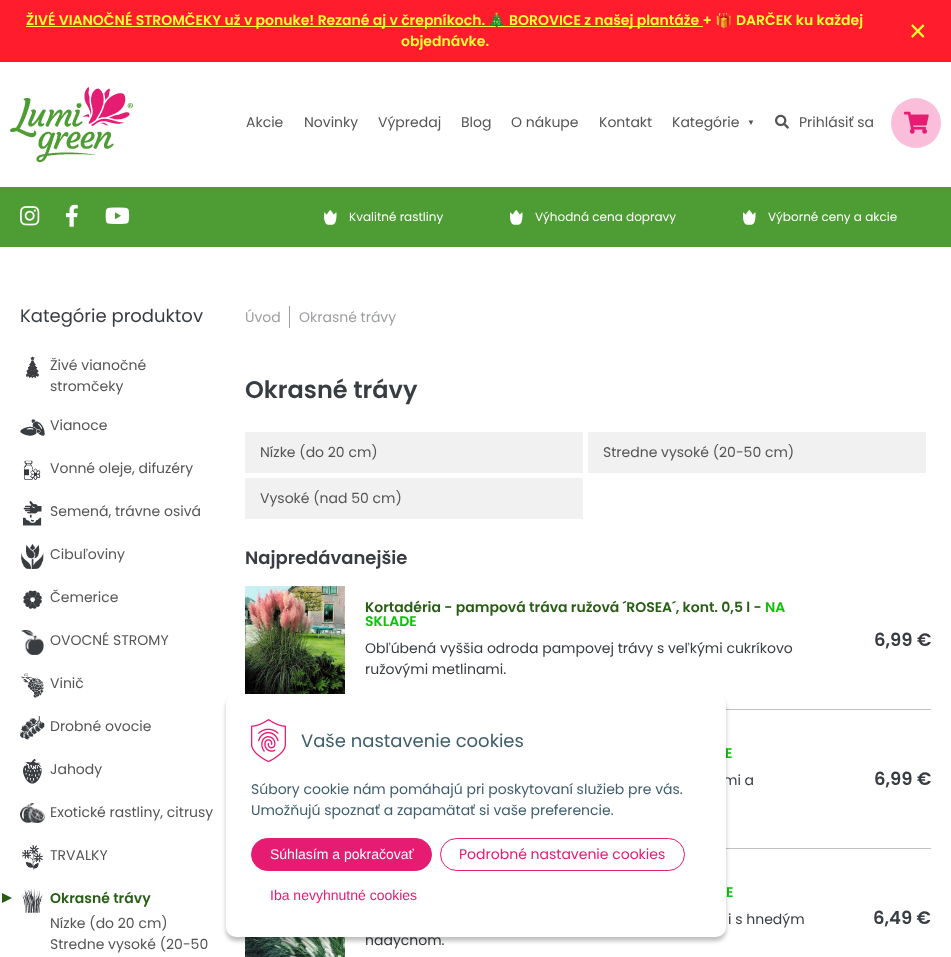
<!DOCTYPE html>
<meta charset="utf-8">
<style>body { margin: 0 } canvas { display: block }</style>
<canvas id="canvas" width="951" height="957"></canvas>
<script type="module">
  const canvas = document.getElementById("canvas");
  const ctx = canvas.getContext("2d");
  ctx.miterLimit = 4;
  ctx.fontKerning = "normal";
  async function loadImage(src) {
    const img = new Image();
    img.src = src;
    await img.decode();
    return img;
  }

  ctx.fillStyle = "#ffffff";
  ctx.fillRect(0, 0, 951, 957);
  ctx.fillStyle = "#ff1d2d";
  ctx.fillRect(0, 0, 951, 62);
  ctx.fillStyle = "#ffff33";
  ctx.fillRect(26, 26, 677, 1);
  ctx.font = "600 14px Poppins";
  ctx.fillText("ŽIVÉ VIANOČNÉ STROMČEKY už v ponuke! Rezané aj v črepníkoch.", 26, 25);
  ctx.font = "bold 14px Noto Color Emoji";
  ctx.fillText("🎄", 488, 25);
  ctx.font = "600 14px Poppins";
  ctx.fillText("BOROVICE z našej plantáže +", 509, 25);
  ctx.font = "bold 14px Noto Color Emoji";
  ctx.fillText("🎁", 715, 25);
  ctx.font = "600 14px Poppins";
  ctx.fillText("DARČEK ku každej", 736, 25);
  ctx.fillText("objednávke.", 401, 46);
  ctx.font = "30px Liberation Sans";
  ctx.fillText("×", 909, 41);
  ctx.drawImage(await loadImage("img1.png"), 10, 87, 123, 76);
  ctx.font = "14px Poppins";
  ctx.fillStyle = "#555555";
  ctx.fillText("Akcie", 246, 127);
  ctx.fillText("Novinky", 304, 127);
  ctx.fillText("Výpredaj", 378, 127);
  ctx.fillText("Blog", 461, 127);
  ctx.fillText("O nákupe", 511, 127);
  ctx.fillText("Kontakt", 599, 127);
  ctx.fillText("Kategórie", 672, 127);
  ctx.font = "8px Liberation Sans";
  ctx.fillText("▼", 747, 125);
  ctx.drawImage(await loadImage("img2.png"), 775, 114, 14, 15);
  ctx.font = "14px Poppins";
  ctx.fillText("Prihlásiť sa", 799, 127);
  ctx.fillStyle = "#fabeda";
  ctx.beginPath();
  ctx.arc(916, 123, 25, 0, Math.PI * 2);
  ctx.fill();
  ctx.drawImage(await loadImage("img3.png"), 904, 111, 25, 23);
  ctx.fillStyle = "#4e9c34";
  ctx.fillRect(0, 187, 951, 60);
  ctx.drawImage(await loadImage("img4.png"), 20, 206, 20, 20);
  ctx.drawImage(await loadImage("img5.png"), 66, 204, 12, 23);
  ctx.drawImage(await loadImage("img6.png"), 105, 207, 25, 17);
  ctx.drawImage(await loadImage("img7.png"), 324, 210, 13, 15);
  ctx.font = "12px Poppins";
  ctx.fillStyle = "#ffffff";
  ctx.fillText("Kvalitné rastliny", 349, 221);
  ctx.drawImage(await loadImage("img7.png"), 510, 210, 13, 15);
  ctx.fillText("Výhodná cena dopravy", 535, 221);
  ctx.drawImage(await loadImage("img7.png"), 743, 210, 13, 15);
  ctx.fillText("Výborné ceny a akcie", 768, 221);
  ctx.font = "18px Poppins";
  ctx.fillStyle = "#383d41";
  ctx.fillText("Kategórie produktov", 20, 322);
  ctx.drawImage(await loadImage("img8.png"), 26, 356, 14, 23);
  ctx.font = "14px Poppins";
  ctx.fillStyle = "#555555";
  ctx.fillText("Živé vianočné", 50, 370);
  ctx.fillText("stromčeky", 50, 391);
  ctx.drawImage(await loadImage("img9.png"), 20, 419, 25, 17);
  ctx.fillText("Vianoce", 50, 430);
  ctx.drawImage(await loadImage("img10.png"), 23, 460, 18, 20);
  ctx.fillText("Vonné oleje, difuzéry", 50, 473);
  ctx.drawImage(await loadImage("img11.png"), 23, 501, 19, 25);
  ctx.fillText("Semená, trávne osivá", 50, 516);
  ctx.drawImage(await loadImage("img12.png"), 21, 544, 23, 25);
  ctx.fillText("Cibuľoviny", 50, 559);
  ctx.drawImage(await loadImage("img13.png"), 23, 590, 19, 19);
  ctx.fillText("Čemerice", 50, 602);
  ctx.drawImage(await loadImage("img14.png"), 21, 630, 23, 25);
  ctx.fillText("OVOCNÉ STROMY", 50, 645);
  ctx.drawImage(await loadImage("img15.png"), 21, 673, 23, 25);
  ctx.fillText("Vinič", 50, 688);
  ctx.drawImage(await loadImage("img16.png"), 20, 716, 25, 24);
  ctx.fillText("Drobné ovocie", 50, 731);
  ctx.drawImage(await loadImage("img17.png"), 23, 759, 19, 25);
  ctx.fillText("Jahody", 50, 774);
  ctx.drawImage(await loadImage("img18.png"), 20, 803, 25, 20);
  ctx.fillText("Exotické rastliny, citrusy", 50, 817);
  ctx.drawImage(await loadImage("img19.png"), 22, 845, 21, 25);
  ctx.fillText("TRVALKY", 50, 860);
  ctx.fillStyle = "#275e14";
  ctx.beginPath();
  ctx.moveTo(2, 903);
  ctx.lineTo(2, 893);
  ctx.lineTo(12, 898);
  ctx.closePath();
  ctx.fill();
  ctx.drawImage(await loadImage("img20.png"), 22, 888, 21, 25);
  ctx.font = "600 14px Poppins";
  ctx.fillText("Okrasné trávy", 50, 903);
  ctx.font = "14px Poppins";
  ctx.fillStyle = "#555555";
  ctx.fillText("Nízke (do 20 cm)", 50, 928);
  ctx.fillText("Stredne vysoké (20-50", 50, 949);
  ctx.fillStyle = "#9c9ea0";
  ctx.fillText("Úvod", 245, 322);
  ctx.fillRect(289, 306, 1, 22);
  ctx.fillText("Okrasné trávy", 299, 322);
  ctx.font = "600 24px Poppins";
  ctx.fillStyle = "#383d41";
  ctx.fillText("Okrasné trávy", 245, 398);
  ctx.fillStyle = "#f1f1f1";
  ctx.fillRect(245, 432, 338, 41);
  ctx.font = "14px Poppins";
  ctx.fillStyle = "#555555";
  ctx.fillText("Nízke (do 20 cm)", 260, 457);
  ctx.fillStyle = "#f1f1f1";
  ctx.fillRect(588, 432, 338, 41);
  ctx.fillStyle = "#555555";
  ctx.fillText("Stredne vysoké (20-50 cm)", 603, 457);
  ctx.fillStyle = "#f1f1f1";
  ctx.fillRect(245, 478, 338, 41);
  ctx.fillStyle = "#555555";
  ctx.fillText("Vysoké (nad 50 cm)", 260, 503);
  ctx.font = "600 18px Poppins";
  ctx.fillStyle = "#383d41";
  ctx.fillText("Najpredávanejšie", 245, 564);
  ctx.fillStyle = "#c0c1c3";
  ctx.fillRect(726, 709, 205, 1);
  ctx.drawImage(await loadImage("img21.png"), 245, 586, 100, 108);
  ctx.font = "600 14px Poppins";
  ctx.fillStyle = "#275e14";
  ctx.fillText("Kortadéria - pampová tráva ružová ´ROSEA´, kont. 0,5 l -", 365, 612);
  ctx.fillStyle = "#0bc406";
  ctx.fillText("NA", 765, 612);
  ctx.fillText("SKLADE", 365, 626);
  ctx.font = "14px Poppins";
  ctx.fillStyle = "#383d41";
  ctx.fillText("Obľúbená vyššia odroda pampovej trávy s veľkými cukríkovo", 365, 653);
  ctx.fillText("ružovými metlinami.", 365, 674);
  ctx.font = "600 18px Poppins";
  ctx.fillText("6,99 €", 874, 646);
  ctx.fillStyle = "#c0c1c3";
  ctx.fillRect(726, 848, 205, 1);
  ctx.font = "600 14px Poppins";
  ctx.fillStyle = "#0bc406";
  ctx.fillText("E", 725, 758);
  ctx.font = "14px Poppins";
  ctx.fillStyle = "#383d41";
  ctx.fillText("mi a", 723, 785);
  ctx.font = "600 18px Poppins";
  ctx.fillText("6,99 €", 874, 785);
  ctx.font = "600 14px Poppins";
  ctx.fillStyle = "#0bc406";
  ctx.fillText("E", 726, 897);
  ctx.font = "14px Poppins";
  ctx.fillStyle = "#383d41";
  ctx.fillText("i s hnedým", 728, 924);
  ctx.fillText("nádychom.", 365, 945);
  ctx.font = "600 18px Poppins";
  ctx.fillText("6,49 €", 873, 924);
  ctx.drawImage(await loadImage("img22.png"), 245, 937, 100, 20);
  ctx.fillStyle = "rgba(0, 0, 0, 0.25)";
  ctx.filter = "blur(2px)";
  ctx.beginPath();
  ctx.roundRect(226, 698, 500, 243, 10);
  ctx.fill();
  ctx.filter = "none";
  ctx.fillStyle = "#ffffff";
  ctx.beginPath();
  ctx.roundRect(226, 694, 500, 243, 10);
  ctx.fill();
  ctx.drawImage(await loadImage("img23.png"), 251, 719, 35, 43);
  ctx.font = "18px Poppins";
  ctx.fillStyle = "#3f5e6c";
  ctx.fillText("Vaše nastavenie cookies", 301, 747);
  ctx.font = "14px Poppins";
  ctx.fillText("Súbory cookie nám pomáhajú pri poskytovaní služieb pre vás.", 251, 794);
  ctx.fillText("Umožňujú spoznať a zapamätať si vaše preferencie.", 251, 815);
  ctx.fillStyle = "#e61b72";
  ctx.beginPath();
  ctx.roundRect(251.5, 838.5, 180, 32, 16);
  ctx.fill();
  ctx.strokeStyle = "#e61b72";
  ctx.stroke();
  ctx.font = "14px Liberation Sans";
  ctx.fillStyle = "#ffffff";
  ctx.fillText("Súhlasím a pokračovať", 270, 859);
  ctx.beginPath();
  ctx.roundRect(440.5, 838.5, 244, 32, 16);
  ctx.stroke();
  ctx.font = "14px Poppins";
  ctx.fillStyle = "#e61b72";
  ctx.fillText("Podrobné nastavenie cookies", 459, 859);
  ctx.font = "14px Liberation Sans";
  ctx.fillText("Iba nevyhnutné cookies", 270, 900);
</script>
